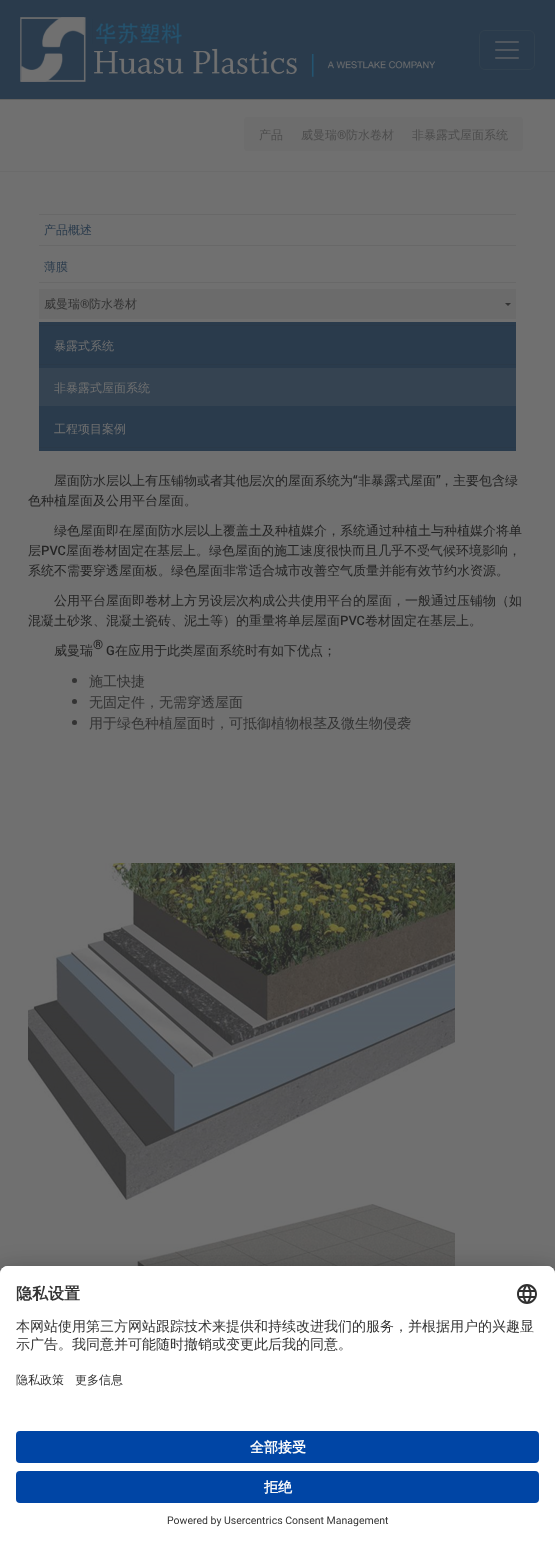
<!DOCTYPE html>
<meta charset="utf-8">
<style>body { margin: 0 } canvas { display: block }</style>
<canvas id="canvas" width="555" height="1543"></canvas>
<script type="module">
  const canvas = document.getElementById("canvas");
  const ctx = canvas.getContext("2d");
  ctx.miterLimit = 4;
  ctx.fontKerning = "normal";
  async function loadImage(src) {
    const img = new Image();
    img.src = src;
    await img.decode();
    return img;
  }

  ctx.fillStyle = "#707070";
  ctx.fillRect(0, 0, 555, 1543);
  ctx.fillStyle = "#2a3b4c";
  ctx.fillRect(0, 0, 555, 99);
  ctx.drawImage(await loadImage("img1.png"), 20, 17, 415, 65);
  ctx.beginPath();
  ctx.roundRect(479.5, 30.5, 55, 39, 5.5);
  ctx.strokeStyle = "#31414f";
  ctx.stroke();
  ctx.drawImage(await loadImage("img2.png"), 495, 41, 24, 18);
  ctx.fillStyle = "#616161";
  ctx.fillRect(0, 99, 555, 1);
  ctx.fillStyle = "#6b6b6b";
  ctx.fillRect(0, 171, 555, 1);
  ctx.fillStyle = "#6d6d6d";
  ctx.beginPath();
  ctx.roundRect(244, 117, 279, 34, 4);
  ctx.fill();
  ctx.font = "500 12px WenQuanYi Zen Hei";
  ctx.fillStyle = "#4d4d4d";
  ctx.fillText("产品", 259, 139);
  ctx.fillText("威曼瑞", 301, 139);
  ctx.font = "500 12px Roboto";
  ctx.fillText("®", 337, 139);
  ctx.font = "500 12px WenQuanYi Zen Hei";
  ctx.fillText("防水卷材", 346, 139);
  ctx.fillText("非暴露式屋面系统", 412, 139);
  ctx.fillStyle = "#686868";
  ctx.fillRect(39, 214, 477, 1);
  ctx.fillRect(39, 245, 477, 1);
  ctx.fillStyle = "#2a3b4c";
  ctx.fillText("产品概述", 44, 234);
  ctx.fillStyle = "#686868";
  ctx.fillRect(39, 282, 477, 1);
  ctx.fillStyle = "#2a3b4c";
  ctx.fillText("薄膜", 44, 271);
  ctx.fillStyle = "#6b6b6b";
  ctx.fillRect(39, 289, 477, 30);
  ctx.fillStyle = "#333333";
  ctx.fillText("威曼瑞", 44, 308);
  ctx.font = "500 12px 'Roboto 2'";
  ctx.fillText("®", 80, 308);
  ctx.font = "500 12px WenQuanYi Zen Hei";
  ctx.fillText("防水卷材", 89, 308);
  ctx.beginPath();
  ctx.moveTo(505, 303);
  ctx.lineTo(511, 303);
  ctx.lineTo(508, 306);
  ctx.closePath();
  ctx.fill();
  ctx.fillStyle = "#2a3b4c";
  ctx.fillRect(39, 322, 477, 129);
  ctx.fillStyle = "#2a3948";
  ctx.fillRect(39, 325, 477, 1);
  ctx.fillRect(39, 364, 477, 1);
  ctx.fillStyle = "#707070";
  ctx.fillText("暴露式系统", 54, 350);
  ctx.fillStyle = "#354351";
  ctx.fillRect(39, 368, 477, 38);
  ctx.fillStyle = "#707070";
  ctx.fillText("非暴露式屋面系统", 54, 392);
  ctx.fillStyle = "#2a3948";
  ctx.fillRect(39, 447, 477, 1);
  ctx.fillStyle = "#707070";
  ctx.fillText("工程项目案例", 54, 433);
  ctx.font = "500 13px WenQuanYi Zen Hei";
  ctx.fillStyle = "#242424";
  ctx.fillText("屋面防水层以上有压铺物或者其他层次的屋面系统为", 54, 485);
  ctx.font = "500 13px Roboto";
  ctx.fillText("“", 353, 485);
  ctx.font = "500 13px WenQuanYi Zen Hei";
  ctx.fillText("非暴露式屋面", 358, 485);
  ctx.font = "500 13px Roboto";
  ctx.fillText("”", 436, 485);
  ctx.font = "500 13px WenQuanYi Zen Hei";
  ctx.fillText("，主要包含绿", 440, 485);
  ctx.fillText("色种植屋面及公用平台屋面。", 28, 505);
  ctx.fillText("绿色屋面即在屋面防水层以上覆盖土及种植媒介，系统通过种植土与种植媒介将单", 54, 535);
  ctx.fillText("层", 28, 555);
  ctx.font = "500 13px Roboto";
  ctx.fillText("PVC", 41, 555);
  ctx.font = "500 13px WenQuanYi Zen Hei";
  ctx.fillText("屋面卷材固定在基层上。绿色屋面的施工速度很快而且几乎不受气候环境影响，", 66, 555);
  ctx.fillText("系统不需要穿透屋面板。绿色屋面非常适合城市改善空气质量并能有效节约水资源。", 28, 575);
  ctx.fillText("公用平台屋面即卷材上方另设层次构成公共使用平台的屋面，一般通过压铺物（如", 54, 605);
  ctx.fillText("混凝土砂浆、混凝土瓷砖、泥土等）的重量将单层屋面", 28, 625);
  ctx.font = "500 13px Roboto";
  ctx.fillText("PVC", 340, 625);
  ctx.font = "500 13px WenQuanYi Zen Hei";
  ctx.fillText("卷材固定在基层上。", 365, 625);
  ctx.fillText("威曼瑞", 54, 655);
  ctx.font = "500 13px Roboto";
  ctx.fillText("®", 93, 649);
  ctx.fillText("G", 106, 655);
  ctx.font = "500 13px WenQuanYi Zen Hei";
  ctx.fillText("在应用于此类屋面系统时有如下优点；", 115, 655);
  ctx.fillStyle = "#333333";
  ctx.beginPath();
  ctx.arc(74.5, 680.5, 2.5, 0, Math.PI * 2);
  ctx.fill();
  ctx.font = "500 14px WenQuanYi Zen Hei";
  ctx.fillText("施工快捷", 89, 686);
  ctx.beginPath();
  ctx.arc(74.5, 701.5, 2.5, 0, Math.PI * 2);
  ctx.fill();
  ctx.fillText("无固定件，无需穿透屋面", 89, 707);
  ctx.beginPath();
  ctx.arc(74.5, 722.5, 2.5, 0, Math.PI * 2);
  ctx.fill();
  ctx.fillText("用于绿色种植屋面时，可抵御植物根茎及微生物侵袭", 89, 728);
  ctx.drawImage(await loadImage("img3.png"), 28, 863, 427, 403);
  ctx.fillStyle = "rgba(0, 0, 0, 0.3)";
  ctx.filter = "blur(14px)";
  ctx.beginPath();
  ctx.roundRect(0, 1286, 555, 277, 8);
  ctx.fill();
  ctx.filter = "none";
  ctx.fillStyle = "rgba(0, 0, 0, 0.22)";
  ctx.filter = "blur(13px)";
  ctx.beginPath();
  ctx.roundRect(0, 1271, 555, 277, 8);
  ctx.fill();
  ctx.filter = "none";
  ctx.fillStyle = "#ffffff";
  ctx.beginPath();
  ctx.roundRect(0, 1266, 555, 277, [8, 8, 0, 0]);
  ctx.fill();
  ctx.beginPath();
  ctx.roundRect(0, 1266, 555, 153, [8, 8, 0, 0]);
  ctx.fill();
  ctx.font = "bold 16px WenQuanYi Zen Hei";
  ctx.fillStyle = "#333333";
  ctx.fillText("隐私设置", 16, 1299);
  ctx.drawImage(await loadImage("img4.png"), 517, 1284, 20, 20);
  ctx.font = "500 14px WenQuanYi Zen Hei";
  ctx.fillText("本网站使用第三方网站跟踪技术来提供和持续改进我们的服务，并根据用户的兴趣显", 16, 1331);
  ctx.fillText("示广告。我同意并可能随时撤销或变更此后我的同意。", 16, 1349);
  ctx.font = "500 12px WenQuanYi Zen Hei";
  ctx.fillText("隐私政策", 16, 1384);
  ctx.fillText("更多信息", 75, 1384);
  ctx.fillStyle = "#0045a5";
  ctx.beginPath();
  ctx.roundRect(16, 1431, 523, 32, 4);
  ctx.fill();
  ctx.font = "bold 14px WenQuanYi Zen Hei";
  ctx.fillStyle = "#fafafa";
  ctx.fillText("全部接受", 250, 1452);
  ctx.fillStyle = "#0045a5";
  ctx.beginPath();
  ctx.roundRect(16, 1471, 523, 32, 4);
  ctx.fill();
  ctx.fillStyle = "#fafafa";
  ctx.fillText("拒绝", 264, 1492);
  ctx.font = "10.5px Roboto";
  ctx.fillStyle = "#333333";
  ctx.fillText("Powered by Usercentrics Consent Management", 167, 1524);
</script>
